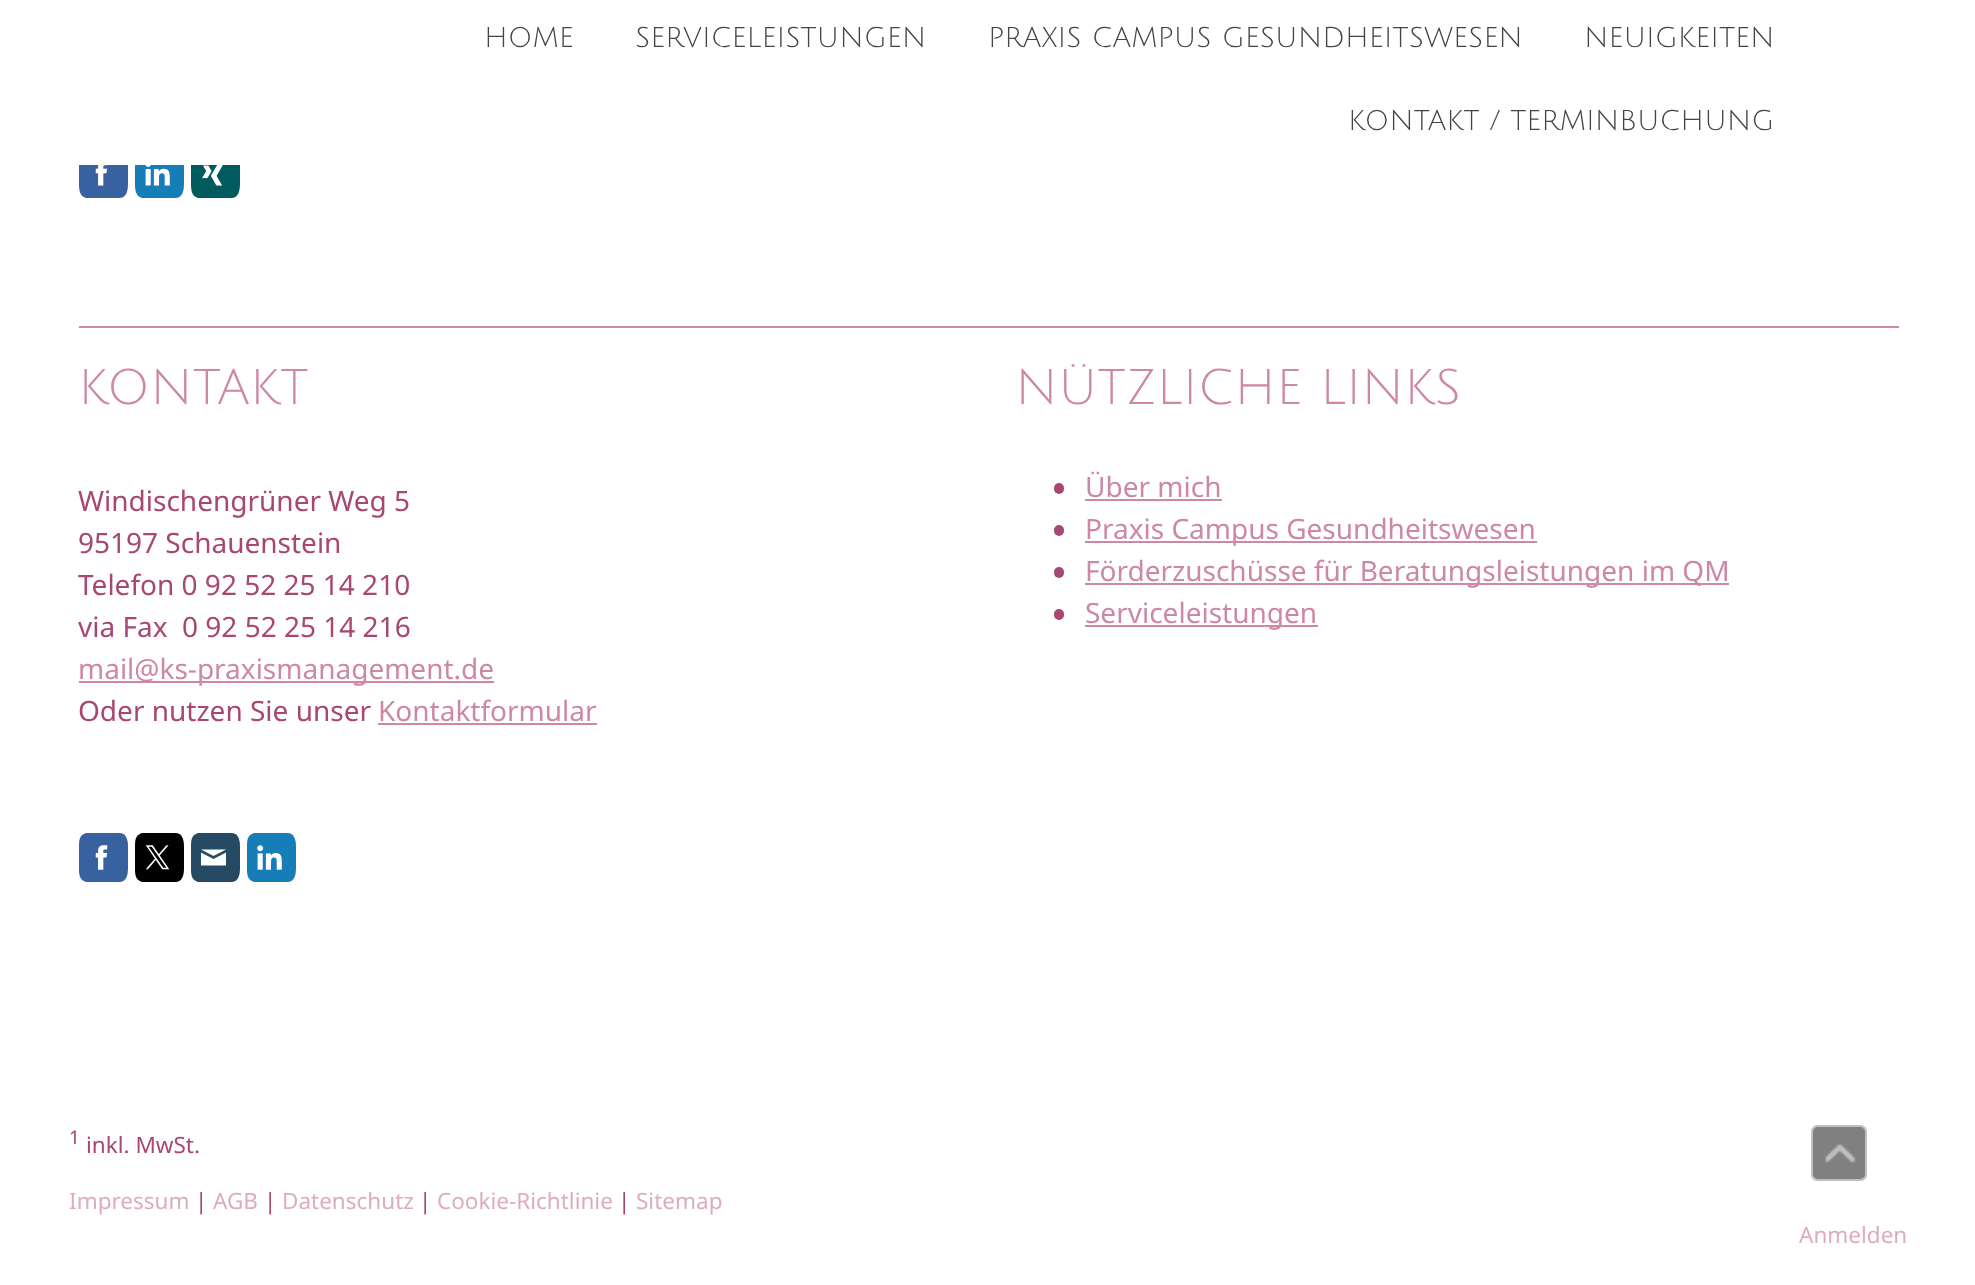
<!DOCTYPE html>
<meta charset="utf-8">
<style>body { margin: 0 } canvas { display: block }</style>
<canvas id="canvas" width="1975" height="1285"></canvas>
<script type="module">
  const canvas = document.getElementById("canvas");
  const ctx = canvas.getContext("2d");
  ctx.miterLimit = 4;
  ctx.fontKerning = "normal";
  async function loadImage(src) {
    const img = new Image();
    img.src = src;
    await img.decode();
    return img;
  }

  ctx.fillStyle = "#ffffff";
  ctx.fillRect(0, 0, 1975, 1285);
  ctx.fillStyle = "#38619f";
  ctx.beginPath();
  ctx.moveTo(119, 198);
  ctx.lineTo(86, 198);
  ctx.bezierCurveTo(79, 196, 79, 189, 79, 183);
  ctx.lineTo(79, 163);
  ctx.bezierCurveTo(79, 157, 79, 150, 86, 149);
  ctx.lineTo(119, 149);
  ctx.bezierCurveTo(127, 149, 128, 156, 128, 163);
  ctx.lineTo(128, 183);
  ctx.bezierCurveTo(128, 190, 127, 198, 119, 198);
  ctx.closePath();
  ctx.fill();
  ctx.fillStyle = "#177db9";
  ctx.beginPath();
  ctx.moveTo(175, 198);
  ctx.lineTo(142, 198);
  ctx.bezierCurveTo(135, 196, 135, 189, 135, 183);
  ctx.lineTo(135, 163);
  ctx.bezierCurveTo(135, 157, 135, 150, 142, 149);
  ctx.lineTo(175, 149);
  ctx.bezierCurveTo(183, 149, 184, 156, 184, 163);
  ctx.lineTo(184, 183);
  ctx.bezierCurveTo(184, 190, 183, 198, 175, 198);
  ctx.closePath();
  ctx.fill();
  ctx.fillStyle = "#005b5f";
  ctx.beginPath();
  ctx.moveTo(231, 198);
  ctx.lineTo(198, 198);
  ctx.bezierCurveTo(191, 196, 191, 189, 191, 183);
  ctx.lineTo(191, 163);
  ctx.bezierCurveTo(191, 157, 191, 150, 198, 149);
  ctx.lineTo(231, 149);
  ctx.bezierCurveTo(239, 149, 240, 156, 240, 163);
  ctx.lineTo(240, 183);
  ctx.bezierCurveTo(240, 190, 239, 198, 231, 198);
  ctx.closePath();
  ctx.fill();
  ctx.fillStyle = "#ffffff";
  ctx.fillRect(79, 149, 161, 16);
  ctx.font = "28px Julius Sans One";
  ctx.fillStyle = "#444444";
  ctx.fillText("HOME", 484, 47);
  ctx.fillText("SERVICELEISTUNGEN", 635, 47);
  ctx.fillText("PRAXIS CAMPUS GESUNDHEITSWESEN", 988, 47);
  ctx.fillText("NEUIGKEITEN", 1584, 47);
  ctx.fillText("KONTAKT / TERMINBUCHUNG", 1348, 130);
  ctx.drawImage(await loadImage("img1.png"), 95, 165, 13, 21);
  ctx.drawImage(await loadImage("img2.png"), 145, 165, 25, 21);
  ctx.drawImage(await loadImage("img3.png"), 202, 165, 21, 21);
  ctx.fillStyle = "#cd88a6";
  ctx.fillRect(79, 326, 1820, 2);
  ctx.font = "49px Julius Sans One";
  ctx.fillText("KONTAKT", 78, 404);
  ctx.font = "28px Noto Sans";
  ctx.fillStyle = "#a84771";
  ctx.fillText("Windischengrüner Weg 5", 78, 511);
  ctx.fillText("95197 Schauenstein", 78, 553);
  ctx.fillText("Telefon 0 92 52 25 14 210", 78, 595);
  ctx.fillText("via Fax  0 92 52 25 14 216", 78, 637);
  ctx.fillStyle = "#cd88a6";
  ctx.fillRect(79, 681, 415, 2);
  ctx.fillText("mail@ks-praxismanagement.de", 78, 679);
  ctx.fillStyle = "#a84771";
  ctx.fillText("Oder nutzen Sie unser", 78, 721);
  ctx.fillStyle = "#cd88a6";
  ctx.fillText("Kontaktformular", 378, 721);
  ctx.fillRect(378, 723, 219, 2);
  ctx.fillStyle = "#38619f";
  ctx.beginPath();
  ctx.moveTo(119, 882);
  ctx.lineTo(86, 882);
  ctx.bezierCurveTo(79, 880, 79, 874, 79, 868);
  ctx.lineTo(79, 847);
  ctx.bezierCurveTo(79, 841, 79, 835, 86, 833);
  ctx.lineTo(119, 833);
  ctx.bezierCurveTo(127, 833, 128, 841, 128, 847);
  ctx.lineTo(128, 868);
  ctx.bezierCurveTo(128, 874, 127, 882, 119, 882);
  ctx.closePath();
  ctx.fill();
  ctx.drawImage(await loadImage("img4.png"), 95, 845, 13, 25);
  ctx.fillStyle = "#000000";
  ctx.beginPath();
  ctx.moveTo(175, 882);
  ctx.lineTo(142, 882);
  ctx.bezierCurveTo(135, 880, 135, 874, 135, 868);
  ctx.lineTo(135, 847);
  ctx.bezierCurveTo(135, 841, 135, 835, 142, 833);
  ctx.lineTo(175, 833);
  ctx.bezierCurveTo(183, 833, 184, 841, 184, 847);
  ctx.lineTo(184, 868);
  ctx.bezierCurveTo(184, 874, 183, 882, 175, 882);
  ctx.closePath();
  ctx.fill();
  ctx.drawImage(await loadImage("img5.png"), 145, 845, 25, 25);
  ctx.fillStyle = "#264a64";
  ctx.beginPath();
  ctx.moveTo(231, 882);
  ctx.lineTo(198, 882);
  ctx.bezierCurveTo(191, 880, 191, 874, 191, 868);
  ctx.lineTo(191, 847);
  ctx.bezierCurveTo(191, 841, 191, 835, 198, 833);
  ctx.lineTo(231, 833);
  ctx.bezierCurveTo(239, 833, 240, 841, 240, 847);
  ctx.lineTo(240, 868);
  ctx.bezierCurveTo(240, 874, 239, 882, 231, 882);
  ctx.closePath();
  ctx.fill();
  ctx.fillStyle = "#ffffff";
  ctx.beginPath();
  ctx.moveTo(226, 865.5);
  ctx.lineTo(201, 865.5);
  ctx.lineTo(201, 852.5);
  ctx.lineTo(213.5, 859);
  ctx.lineTo(226, 852.5);
  ctx.closePath();
  ctx.moveTo(226, 849.5);
  ctx.lineTo(201, 849.5);
  ctx.lineTo(213.5, 856);
  ctx.closePath();
  ctx.fill();
  ctx.fillStyle = "#177db9";
  ctx.beginPath();
  ctx.moveTo(287, 882);
  ctx.lineTo(254, 882);
  ctx.bezierCurveTo(247, 880, 247, 874, 247, 868);
  ctx.lineTo(247, 847);
  ctx.bezierCurveTo(247, 841, 247, 835, 254, 833);
  ctx.lineTo(287, 833);
  ctx.bezierCurveTo(295, 833, 296, 841, 296, 847);
  ctx.lineTo(296, 868);
  ctx.bezierCurveTo(296, 874, 295, 882, 287, 882);
  ctx.closePath();
  ctx.fill();
  ctx.drawImage(await loadImage("img6.png"), 257, 845, 25, 25);
  ctx.font = "49px Julius Sans One";
  ctx.fillStyle = "#cd88a6";
  ctx.fillText("NÜTZLICHE LINKS", 1015, 404);
  ctx.fillStyle = "#a84771";
  ctx.beginPath();
  ctx.roundRect(1054, 483, 10, 11, 5);
  ctx.fill();
  ctx.font = "28px Noto Sans";
  ctx.fillStyle = "#cd88a6";
  ctx.fillText("Über mich", 1085, 497);
  ctx.fillRect(1085, 499, 137, 2);
  ctx.fillStyle = "#a84771";
  ctx.beginPath();
  ctx.roundRect(1054, 525, 10, 11, 5);
  ctx.fill();
  ctx.fillStyle = "#cd88a6";
  ctx.fillRect(1085, 541, 452, 2);
  ctx.fillText("Praxis Campus Gesundheitswesen", 1085, 539);
  ctx.fillStyle = "#a84771";
  ctx.beginPath();
  ctx.roundRect(1054, 567, 10, 11, 5);
  ctx.fill();
  ctx.fillStyle = "#cd88a6";
  ctx.fillRect(1085, 583, 644, 2);
  ctx.fillText("Förderzuschüsse für Beratungsleistungen im QM", 1085, 581);
  ctx.fillStyle = "#a84771";
  ctx.beginPath();
  ctx.roundRect(1054, 609, 10, 11, 5);
  ctx.fill();
  ctx.fillStyle = "#cd88a6";
  ctx.fillRect(1085, 625, 233, 2);
  ctx.fillText("Serviceleistungen", 1085, 623);
  ctx.font = "19px Noto Sans";
  ctx.fillStyle = "#a84771";
  ctx.fillText("1", 69, 1144);
  ctx.font = "22.5px Noto Sans";
  ctx.fillText("inkl. MwSt.", 86, 1153);
  ctx.fillStyle = "#dcacc1";
  ctx.fillText("Impressum", 69, 1209);
  ctx.fillStyle = "#a84771";
  ctx.fillText("|", 195, 1209);
  ctx.fillStyle = "#dcacc1";
  ctx.fillText("AGB", 213, 1209);
  ctx.fillStyle = "#a84771";
  ctx.fillText("|", 264, 1209);
  ctx.fillStyle = "#dcacc1";
  ctx.fillText("Datenschutz", 282, 1209);
  ctx.fillStyle = "#a84771";
  ctx.fillText("|", 419, 1209);
  ctx.fillStyle = "#dcacc1";
  ctx.fillText("Cookie-Richtlinie", 437, 1209);
  ctx.fillStyle = "#a84771";
  ctx.fillText("|", 618, 1209);
  ctx.fillStyle = "#dcacc1";
  ctx.fillText("Sitemap", 636, 1209);
  ctx.fillText("Anmelden", 1799, 1243);
  ctx.fillStyle = "#808080";
  ctx.beginPath();
  ctx.roundRect(1811, 1125, 56, 56, 7);
  ctx.fill();
  ctx.beginPath();
  ctx.roundRect(1812, 1126, 54, 54, 6);
  ctx.strokeStyle = "rgba(255, 255, 255, 0.5)";
  ctx.lineWidth = 2;
  ctx.stroke();
  ctx.drawImage(await loadImage("img7.png"), 1825, 1144, 31, 19);
</script>
